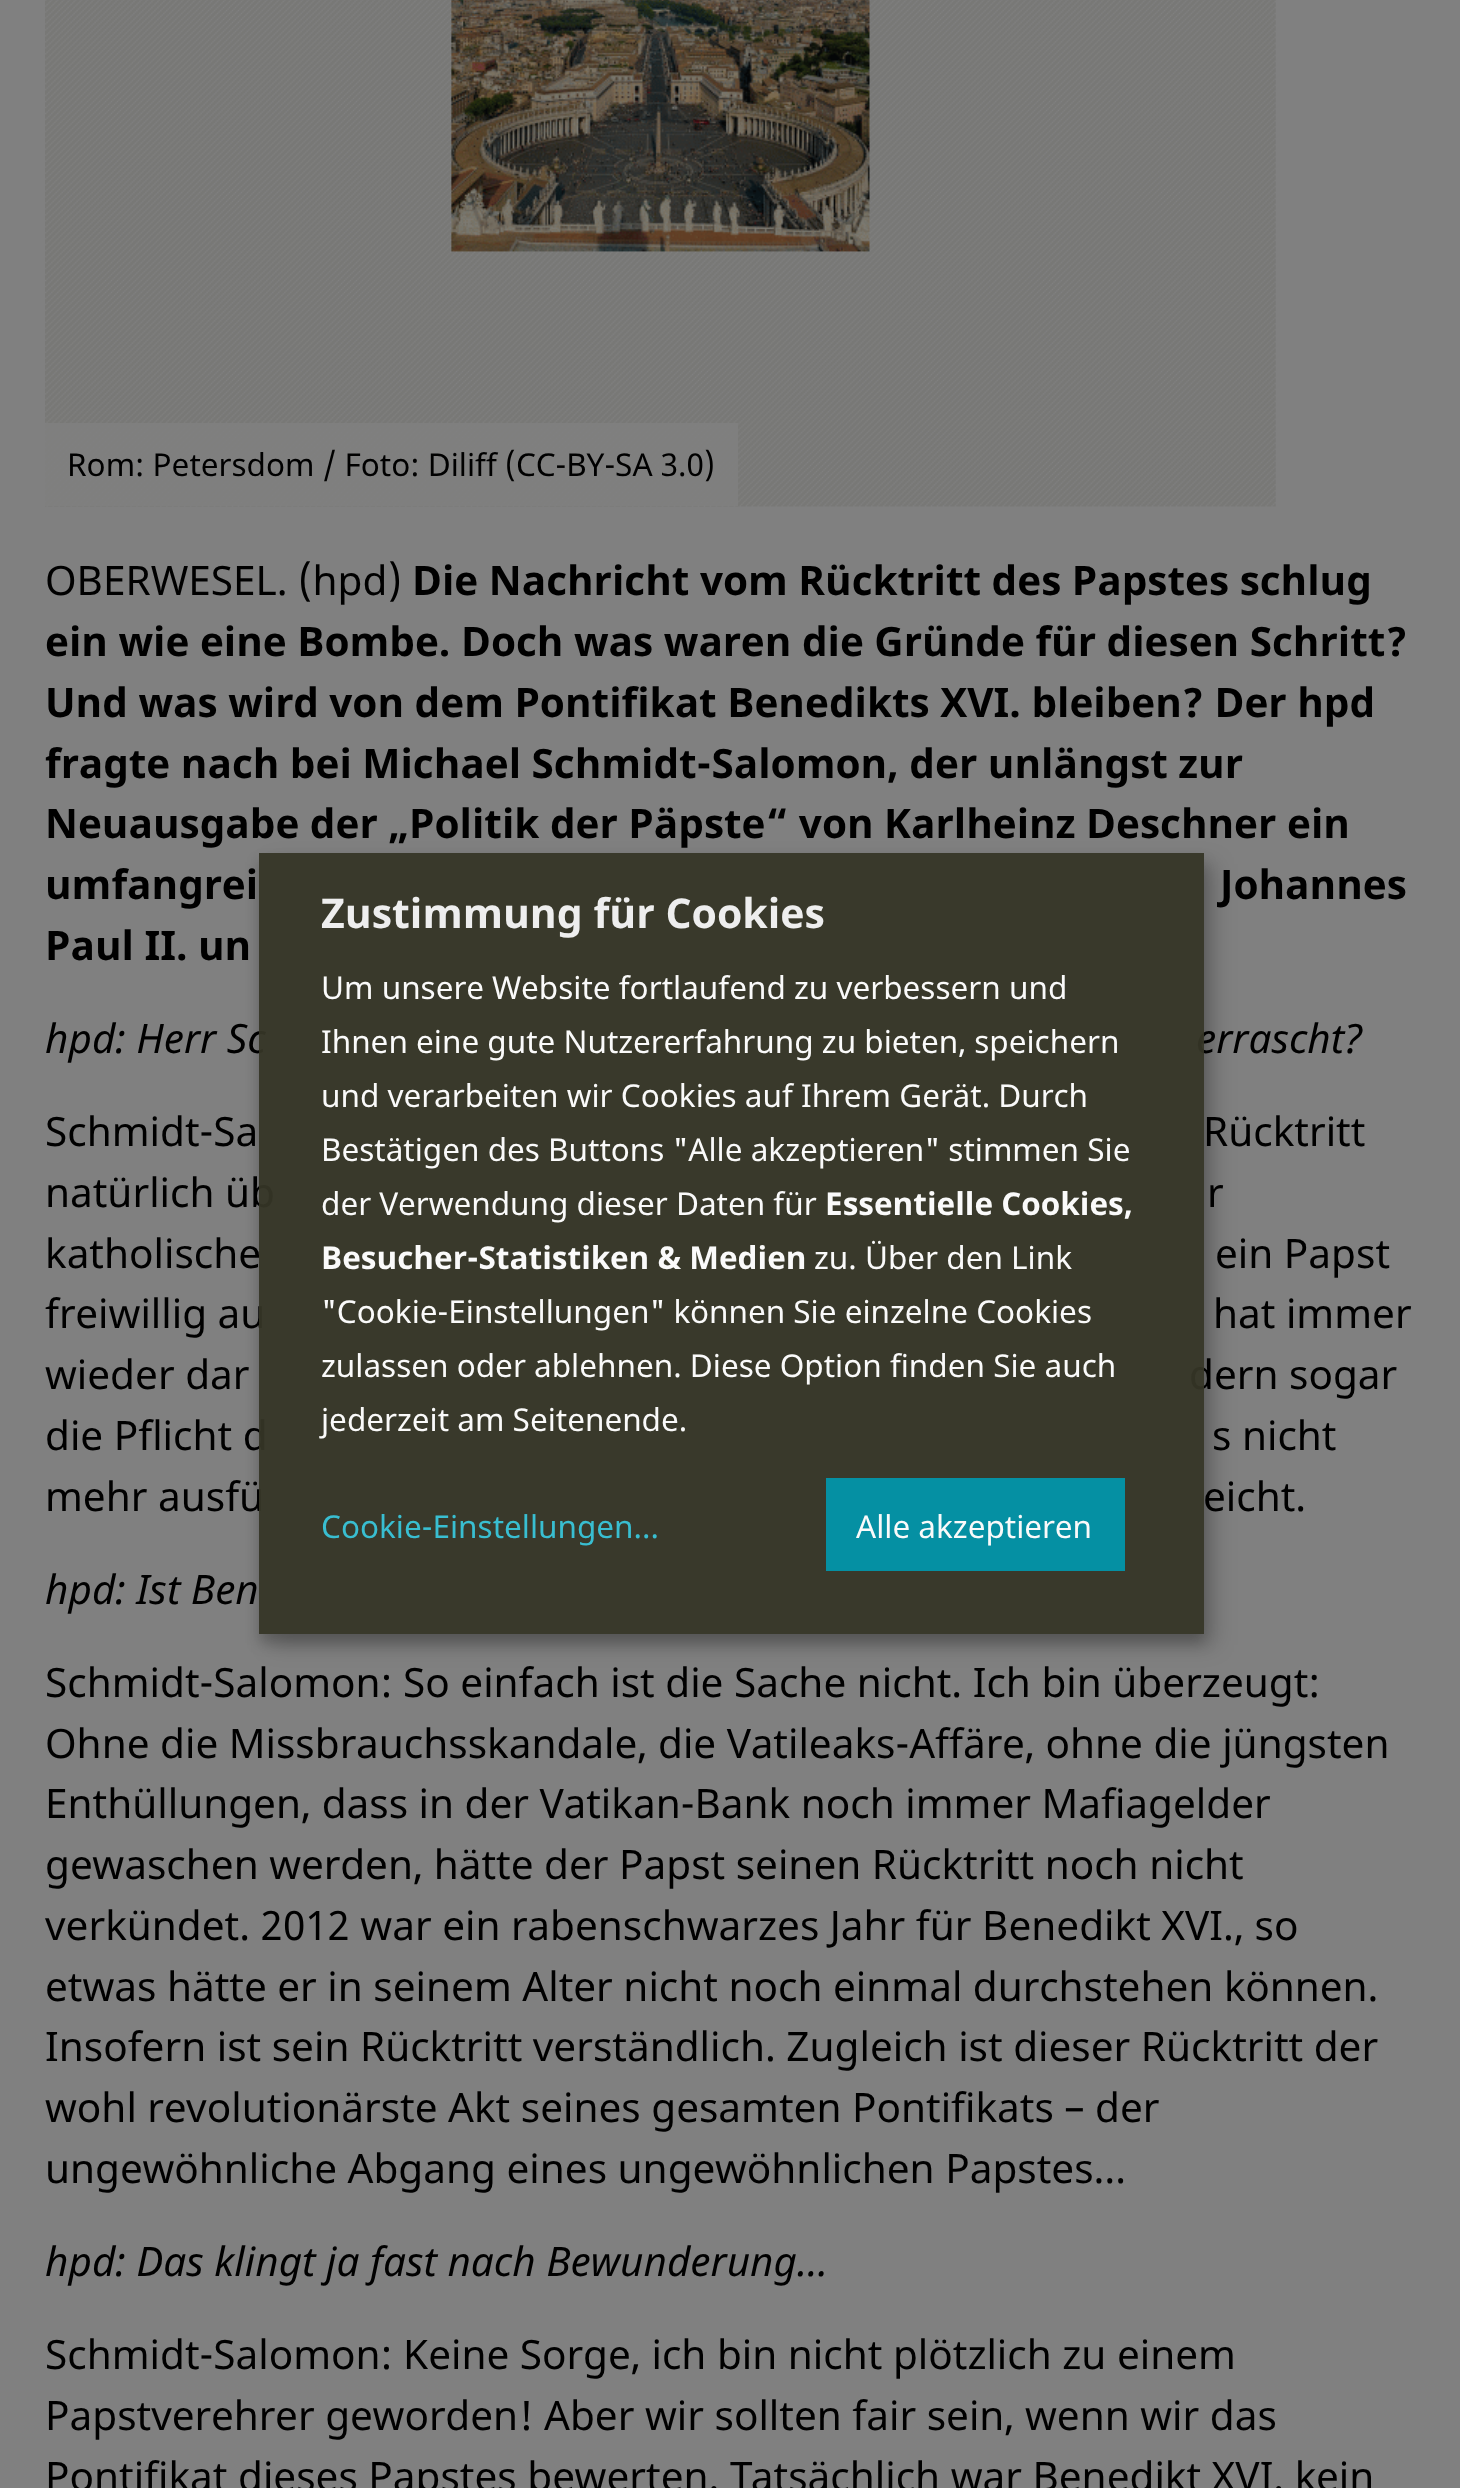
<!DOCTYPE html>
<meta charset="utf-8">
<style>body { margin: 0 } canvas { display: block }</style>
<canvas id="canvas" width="1460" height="2488"></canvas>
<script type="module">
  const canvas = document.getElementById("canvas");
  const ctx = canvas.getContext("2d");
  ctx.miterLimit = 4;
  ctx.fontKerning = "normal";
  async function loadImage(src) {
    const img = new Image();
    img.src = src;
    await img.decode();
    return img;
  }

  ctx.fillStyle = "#808080";
  ctx.fillRect(0, 0, 1460, 2488);
  ctx.drawImage(await loadImage("img1.png"), 45, 0, 1231, 507);
  ctx.fillStyle = "rgba(128, 128, 128, 0.82)";
  ctx.fillRect(45, 423, 693, 83);
  ctx.font = "31.5px Noto Sans";
  ctx.fillStyle = "#000000";
  ctx.fillText("Rom: Petersdom / Foto: Diliff (CC-BY-SA 3.0)", 67, 476);
  ctx.font = "40.5px Noto Sans";
  ctx.fillText("OBERWESEL. (hpd)", 45, 595);
  ctx.font = "bold 40.5px Noto Sans";
  ctx.fillText("Die Nachricht vom Rücktritt des Papstes schlug", 412, 595);
  ctx.fillText("ein wie eine Bombe. Doch was waren die Gründe für diesen Schritt?", 45, 656);
  ctx.fillText("Und was wird von dem Pontifikat Benedikts XVI. bleiben? Der hpd", 45, 717);
  ctx.fillText("fragte nach bei Michael Schmidt-Salomon, der unlängst zur", 45, 778);
  ctx.fillText("Neuausgabe der „Politik der Päpste“ von Karlheinz Deschner ein", 45, 838);
  ctx.fillText("umfangrei", 45, 899);
  ctx.fillText("Johannes", 1220, 899);
  ctx.fillText("Paul II. un", 45, 960);
  ctx.font = "italic 40.5px Noto Sans";
  ctx.fillText("hpd: Herr Sc", 45, 1053);
  ctx.fillText("errascht?", 1196, 1053);
  ctx.font = "40.5px Noto Sans";
  ctx.fillText("Schmidt-Sa", 45, 1146);
  ctx.fillText("Rücktritt", 1203, 1146);
  ctx.fillText("natürlich üb", 45, 1207);
  ctx.fillText("r", 1207, 1207);
  ctx.fillText("katholische", 45, 1268);
  ctx.fillText("ein Papst", 1215, 1268);
  ctx.fillText("freiwillig au", 45, 1328);
  ctx.fillText("hat immer", 1213, 1328);
  ctx.fillText("wieder dar", 45, 1389);
  ctx.fillText("dern sogar", 1189, 1389);
  ctx.fillText("die Pflicht d", 45, 1450);
  ctx.fillText("s nicht", 1212, 1450);
  ctx.fillText("mehr ausfü", 45, 1511);
  ctx.fillText("eicht.", 1203, 1511);
  ctx.font = "italic 40.5px Noto Sans";
  ctx.fillText("hpd: Ist Ben", 45, 1604);
  ctx.font = "40.5px Noto Sans";
  ctx.fillText("Schmidt-Salomon: So einfach ist die Sache nicht. Ich bin überzeugt:", 45, 1697);
  ctx.fillText("Ohne die Missbrauchsskandale, die Vatileaks-Affäre, ohne die jüngsten", 45, 1758);
  ctx.fillText("Enthüllungen, dass in der Vatikan-Bank noch immer Mafiagelder", 45, 1818);
  ctx.fillText("gewaschen werden, hätte der Papst seinen Rücktritt noch nicht", 45, 1879);
  ctx.fillText("verkündet. 2012 war ein rabenschwarzes Jahr für Benedikt XVI., so", 45, 1940);
  ctx.fillText("etwas hätte er in seinem Alter nicht noch einmal durchstehen können.", 45, 2001);
  ctx.fillText("Insofern ist sein Rücktritt verständlich. Zugleich ist dieser Rücktritt der", 45, 2061);
  ctx.fillText("wohl revolutionärste Akt seines gesamten Pontifikats – der", 45, 2122);
  ctx.fillText("ungewöhnliche Abgang eines ungewöhnlichen Papstes…", 45, 2183);
  ctx.font = "italic 40.5px Noto Sans";
  ctx.fillText("hpd: Das klingt ja fast nach Bewunderung…", 45, 2276);
  ctx.font = "40.5px Noto Sans";
  ctx.fillText("Schmidt-Salomon: Keine Sorge, ich bin nicht plötzlich zu einem", 45, 2369);
  ctx.fillText("Papstverehrer geworden! Aber wir sollten fair sein, wenn wir das", 45, 2430);
  ctx.fillText("Pontifikat dieses Papstes bewerten. Tatsächlich war Benedikt XVI. kein", 45, 2491);
  ctx.save();
  ctx.beginPath();
  ctx.moveTo(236, 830);
  ctx.lineTo(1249, 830);
  ctx.lineTo(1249, 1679);
  ctx.lineTo(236, 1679);
  ctx.closePath();
  ctx.moveTo(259, 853);
  ctx.lineTo(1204, 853);
  ctx.lineTo(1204, 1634);
  ctx.lineTo(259, 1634);
  ctx.closePath();
  ctx.clip("evenodd");
  ctx.fillStyle = "rgba(0, 0, 0, 0.19)";
  ctx.filter = "blur(11px)";
  ctx.beginPath();
  ctx.rect(270, 864, 945, 781);
  ctx.fill();
  ctx.filter = "none";
  ctx.restore();
  ctx.save();
  ctx.beginPath();
  ctx.moveTo(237, 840);
  ctx.lineTo(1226, 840);
  ctx.lineTo(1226, 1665);
  ctx.lineTo(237, 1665);
  ctx.closePath();
  ctx.moveTo(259, 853);
  ctx.lineTo(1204, 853);
  ctx.lineTo(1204, 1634);
  ctx.lineTo(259, 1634);
  ctx.closePath();
  ctx.clip("evenodd");
  ctx.fillStyle = "rgba(0, 0, 0, 0.2)";
  ctx.filter = "blur(7px)";
  ctx.beginPath();
  ctx.rect(259, 862, 945, 781);
  ctx.fill();
  ctx.filter = "none";
  ctx.restore();
  ctx.fillStyle = "rgba(53, 53, 38, 0.95)";
  ctx.fillRect(259, 853, 945, 781);
  ctx.font = "bold 41px Noto Sans";
  ctx.fillStyle = "#eeeeee";
  ctx.fillText("Zustimmung für Cookies", 321, 928);
  ctx.font = "31.5px Noto Sans";
  ctx.fillStyle = "#fafafa";
  ctx.fillText("Um unsere Website fortlaufend zu verbessern und", 321, 999);
  ctx.fillText("Ihnen eine gute Nutzererfahrung zu bieten, speichern", 321, 1053);
  ctx.fillText("und verarbeiten wir Cookies auf Ihrem Gerät. Durch", 321, 1107);
  ctx.fillText("Bestätigen des Buttons \"Alle akzeptieren\" stimmen Sie", 321, 1161);
  ctx.fillText("der Verwendung dieser Daten für", 321, 1215);
  ctx.font = "bold 31.5px Noto Sans";
  ctx.fillText("Essentielle Cookies,", 825, 1215);
  ctx.fillText("Besucher-Statistiken & Medien", 321, 1269);
  ctx.font = "31.5px Noto Sans";
  ctx.fillText("zu. Über den Link", 814, 1269);
  ctx.fillText("\"Cookie-Einstellungen\" können Sie einzelne Cookies", 321, 1323);
  ctx.fillText("zulassen oder ablehnen. Diese Option finden Sie auch", 321, 1377);
  ctx.fillText("jederzeit am Seitenende.", 321, 1431);
  ctx.fillStyle = "#39bed1";
  ctx.fillText("Cookie-Einstellungen...", 321, 1538);
  ctx.fillStyle = "#0590a3";
  ctx.fillRect(826, 1478, 299, 93);
  ctx.fillStyle = "#fafafa";
  ctx.fillText("Alle akzeptieren", 856, 1538);
</script>
